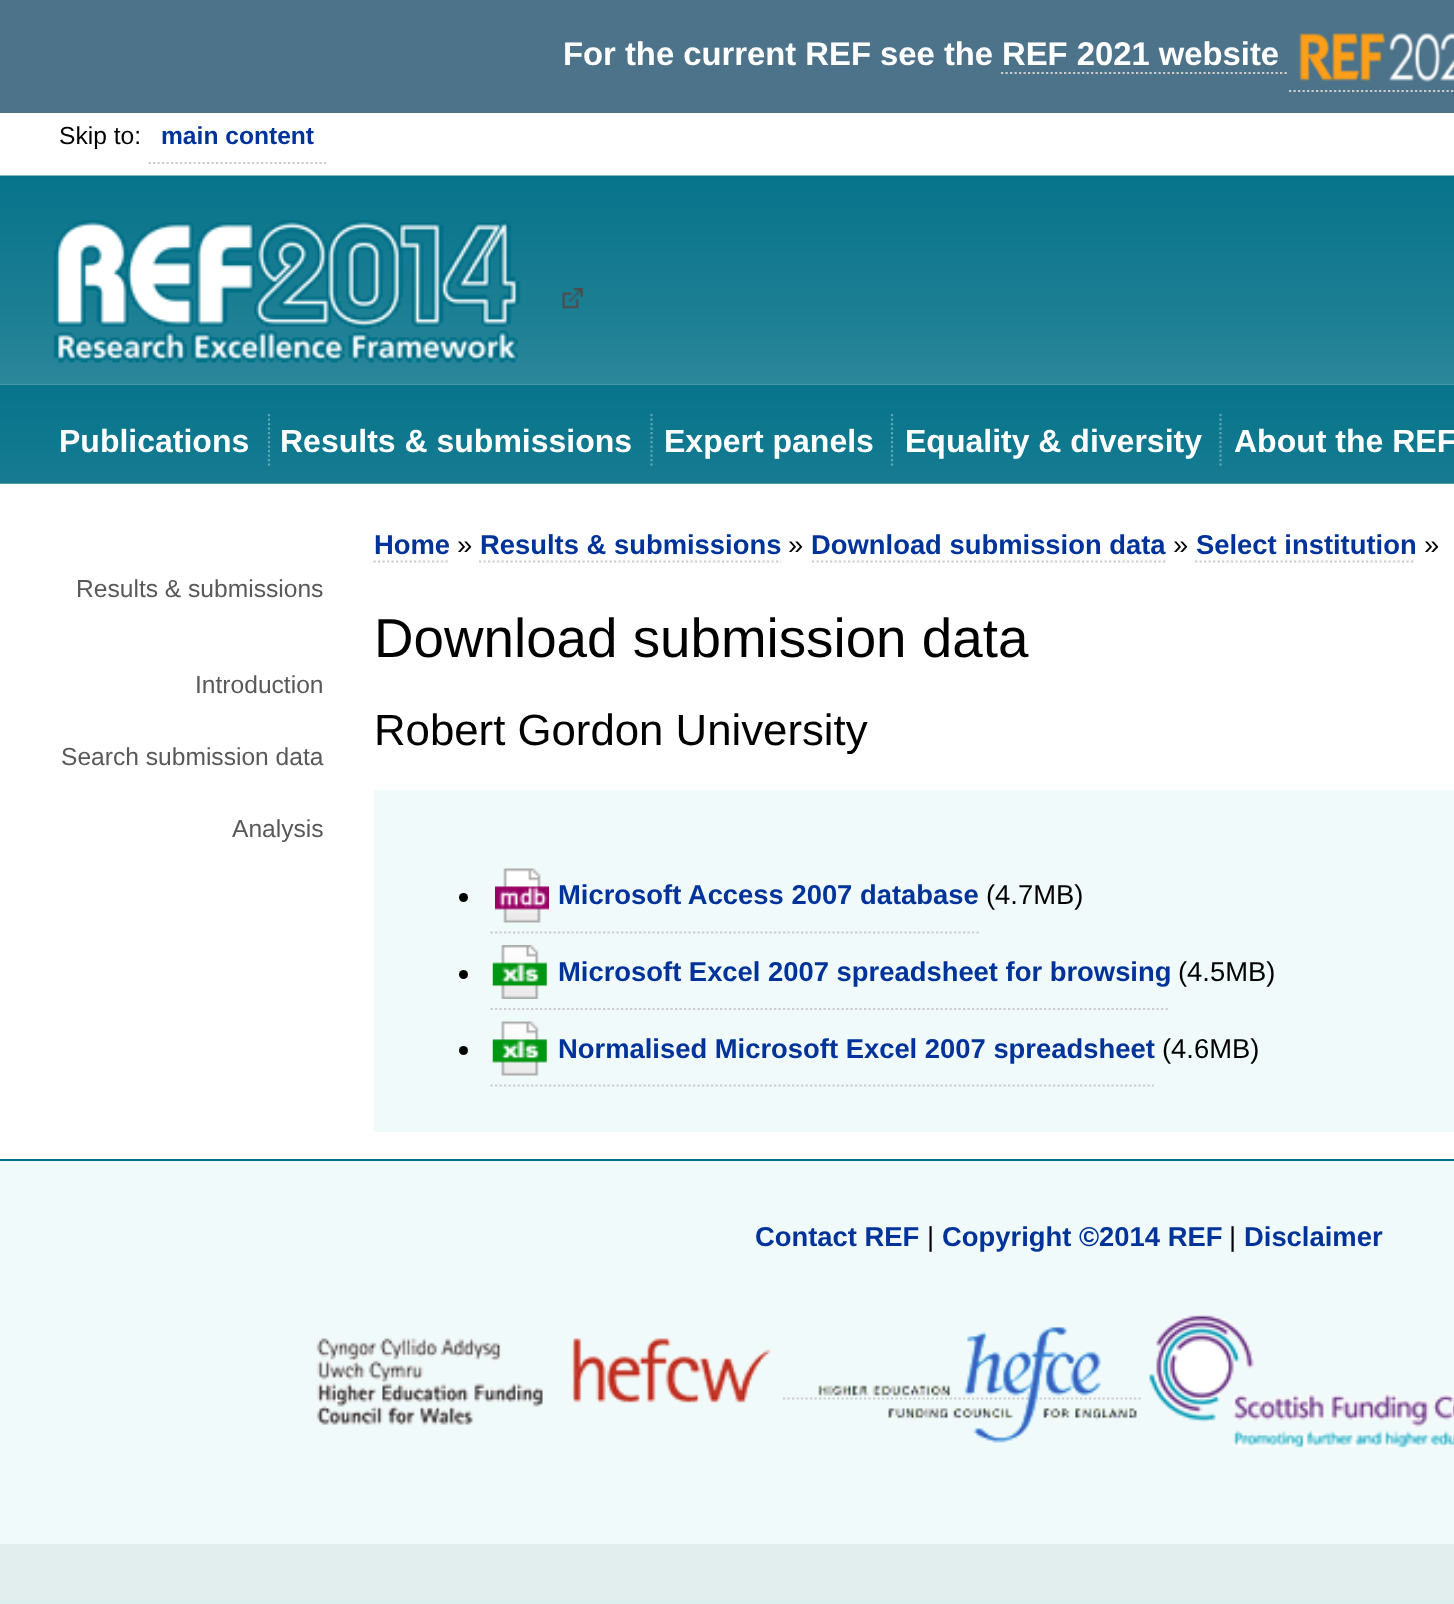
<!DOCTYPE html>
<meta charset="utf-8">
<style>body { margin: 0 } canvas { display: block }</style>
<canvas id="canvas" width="1454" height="1604"></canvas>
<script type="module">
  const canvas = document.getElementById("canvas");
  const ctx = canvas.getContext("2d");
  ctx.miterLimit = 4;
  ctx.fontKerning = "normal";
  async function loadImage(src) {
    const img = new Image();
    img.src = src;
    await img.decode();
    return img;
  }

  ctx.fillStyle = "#ddeeee";
  ctx.fillRect(0, 0, 1454, 1604);
  ctx.drawImage(await loadImage("img1.png"), 0, 1544, 1454, 57);
  ctx.fillStyle = "#ffffff";
  ctx.fillRect(0, 113, 1454, 1046);
  ctx.fillStyle = "#4d738a";
  ctx.fillRect(0, 0, 1454, 113);
  ctx.font = "bold 32.8px Liberation Sans";
  ctx.fillStyle = "#ffffff";
  ctx.fillText("For the current REF see the", 563, 65);
  ctx.fillText("REF 2021 website", 1002, 65);
  ctx.beginPath();
  ctx.moveTo(1001, 73);
  ctx.lineTo(1289, 73);
  ctx.strokeStyle = "#cccccc";
  ctx.lineWidth = 2.2;
  ctx.setLineDash([2.25, 2.25]);
  ctx.stroke();
  ctx.beginPath();
  ctx.moveTo(1289, 91);
  ctx.lineTo(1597.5, 91);
  ctx.stroke();
  ctx.drawImage(await loadImage("img2.png"), 1289, 32, 165, 58);
  ctx.font = "24.6px Liberation Sans";
  ctx.fillStyle = "#000000";
  ctx.fillText("Skip to:", 59, 144);
  ctx.font = "bold 24.6px Liberation Sans";
  ctx.fillStyle = "#003399";
  ctx.fillText("main content", 161, 144);
  ctx.beginPath();
  ctx.moveTo(148.5, 163);
  ctx.lineTo(328.5, 163);
  ctx.stroke();
  ctx.drawImage(await loadImage("img3.png"), 0, 175, 1454, 210);
  ctx.drawImage(await loadImage("img4.png"), 562, 288, 21, 21);
  ctx.drawImage(await loadImage("img5.png"), 53, 220, 468, 143);
  ctx.drawImage(await loadImage("img6.png"), 0, 384, 1454, 100);
  ctx.font = "bold 32px Liberation Sans";
  ctx.fillStyle = "#ffffff";
  ctx.fillText("Publications", 59, 452);
  ctx.fillText("Results & submissions", 280, 452);
  ctx.beginPath();
  ctx.moveTo(269, 414);
  ctx.lineTo(269, 468);
  ctx.strokeStyle = "#60a5b3";
  ctx.stroke();
  ctx.fillText("Expert panels", 664, 452);
  ctx.beginPath();
  ctx.moveTo(651.5, 414);
  ctx.lineTo(651.5, 468);
  ctx.stroke();
  ctx.fillText("Equality & diversity", 905, 452);
  ctx.beginPath();
  ctx.moveTo(892, 414);
  ctx.lineTo(892, 468);
  ctx.stroke();
  ctx.fillText("About the REF", 1234, 452);
  ctx.beginPath();
  ctx.moveTo(1220.5, 414);
  ctx.lineTo(1220.5, 468);
  ctx.stroke();
  ctx.font = "24.6px Liberation Sans";
  ctx.fillStyle = "#595959";
  ctx.fillText("Results & submissions", 76, 597);
  ctx.fillText("Introduction", 195, 693);
  ctx.fillText("Search submission data", 61, 765);
  ctx.fillText("Analysis", 232, 837);
  ctx.font = "bold 27.4px Liberation Sans";
  ctx.fillStyle = "#003399";
  ctx.fillText("Home", 374, 554);
  ctx.beginPath();
  ctx.moveTo(373.5, 561.5);
  ctx.lineTo(450, 561.5);
  ctx.strokeStyle = "#cccccc";
  ctx.stroke();
  ctx.font = "27.4px Liberation Sans";
  ctx.fillStyle = "#000000";
  ctx.fillText("»", 457, 554);
  ctx.font = "bold 27.4px Liberation Sans";
  ctx.fillStyle = "#003399";
  ctx.fillText("Results & submissions", 480, 554);
  ctx.beginPath();
  ctx.moveTo(479, 561.5);
  ctx.lineTo(781, 561.5);
  ctx.stroke();
  ctx.font = "27.4px Liberation Sans";
  ctx.fillStyle = "#000000";
  ctx.fillText("»", 788, 554);
  ctx.font = "bold 27.4px Liberation Sans";
  ctx.fillStyle = "#003399";
  ctx.fillText("Download submission data", 811, 554);
  ctx.beginPath();
  ctx.moveTo(812, 561.5);
  ctx.lineTo(1165.5, 561.5);
  ctx.stroke();
  ctx.font = "27.4px Liberation Sans";
  ctx.fillStyle = "#000000";
  ctx.fillText("»", 1173, 554);
  ctx.font = "bold 27.4px Liberation Sans";
  ctx.fillStyle = "#003399";
  ctx.fillText("Select institution", 1196, 554);
  ctx.beginPath();
  ctx.moveTo(1195, 561.5);
  ctx.lineTo(1415, 561.5);
  ctx.stroke();
  ctx.font = "27.4px Liberation Sans";
  ctx.fillStyle = "#000000";
  ctx.fillText("»", 1424, 554);
  ctx.font = "54.75px Liberation Sans";
  ctx.fillText("Download submission data", 374, 657);
  ctx.font = "43.75px Liberation Sans";
  ctx.fillText("Robert Gordon University", 374, 745);
  ctx.fillStyle = "#f1fafa";
  ctx.fillRect(374, 790, 1080, 342);
  ctx.fillStyle = "#000000";
  ctx.beginPath();
  ctx.arc(463.5, 897.5, 4.5, 0, Math.PI * 2);
  ctx.fill();
  ctx.drawImage(await loadImage("img7.png"), 495, 868, 54, 55);
  ctx.font = "bold 27.4px Liberation Sans";
  ctx.fillStyle = "#003399";
  ctx.fillText("Microsoft Access 2007 database", 558, 904);
  ctx.beginPath();
  ctx.moveTo(490.5, 932.5);
  ctx.lineTo(979, 932.5);
  ctx.stroke();
  ctx.font = "27.4px Liberation Sans";
  ctx.fillStyle = "#000000";
  ctx.fillText("(4.7MB)", 986, 904);
  ctx.beginPath();
  ctx.arc(463.5, 974.5, 4.5, 0, Math.PI * 2);
  ctx.fill();
  ctx.drawImage(await loadImage("img8.png"), 492, 945, 55, 54);
  ctx.font = "bold 27.4px Liberation Sans";
  ctx.fillStyle = "#003399";
  ctx.fillText("Microsoft Excel 2007 spreadsheet for browsing", 558, 981);
  ctx.beginPath();
  ctx.moveTo(490.5, 1009);
  ctx.lineTo(1170, 1009);
  ctx.stroke();
  ctx.font = "27.4px Liberation Sans";
  ctx.fillStyle = "#000000";
  ctx.fillText("(4.5MB)", 1178, 981);
  ctx.beginPath();
  ctx.arc(463.5, 1050.5, 4.5, 0, Math.PI * 2);
  ctx.fill();
  ctx.drawImage(await loadImage("img9.png"), 492, 1021, 55, 55);
  ctx.font = "bold 27.4px Liberation Sans";
  ctx.fillStyle = "#003399";
  ctx.fillText("Normalised Microsoft Excel 2007 spreadsheet", 558, 1058);
  ctx.beginPath();
  ctx.moveTo(490.5, 1085.5);
  ctx.lineTo(1154, 1085.5);
  ctx.stroke();
  ctx.font = "27.4px Liberation Sans";
  ctx.fillStyle = "#000000";
  ctx.fillText("(4.6MB)", 1162, 1058);
  ctx.fillStyle = "#f1fafa";
  ctx.fillRect(0, 1161, 1454, 383);
  ctx.fillStyle = "#007088";
  ctx.fillRect(0, 1159, 1454, 2);
  ctx.font = "bold 27.4px Liberation Sans";
  ctx.fillStyle = "#003399";
  ctx.fillText("Contact REF", 755, 1246);
  ctx.font = "27.4px Liberation Sans";
  ctx.fillStyle = "#000000";
  ctx.fillText("|", 927, 1246);
  ctx.font = "bold 27.4px Liberation Sans";
  ctx.fillStyle = "#003399";
  ctx.fillText("Copyright ©2014 REF", 942, 1246);
  ctx.font = "27.4px Liberation Sans";
  ctx.fillStyle = "#000000";
  ctx.fillText("|", 1229, 1246);
  ctx.font = "bold 27.4px Liberation Sans";
  ctx.fillStyle = "#003399";
  ctx.fillText("Disclaimer", 1244, 1246);
  ctx.drawImage(await loadImage("img10.png"), 316, 1338, 456, 87);
  ctx.beginPath();
  ctx.moveTo(783, 1398.5);
  ctx.lineTo(1143, 1398.5);
  ctx.stroke();
  ctx.drawImage(await loadImage("img11.png"), 818, 1327, 319, 116);
  ctx.drawImage(await loadImage("img12.png"), 1149, 1315, 305, 133);
</script>
